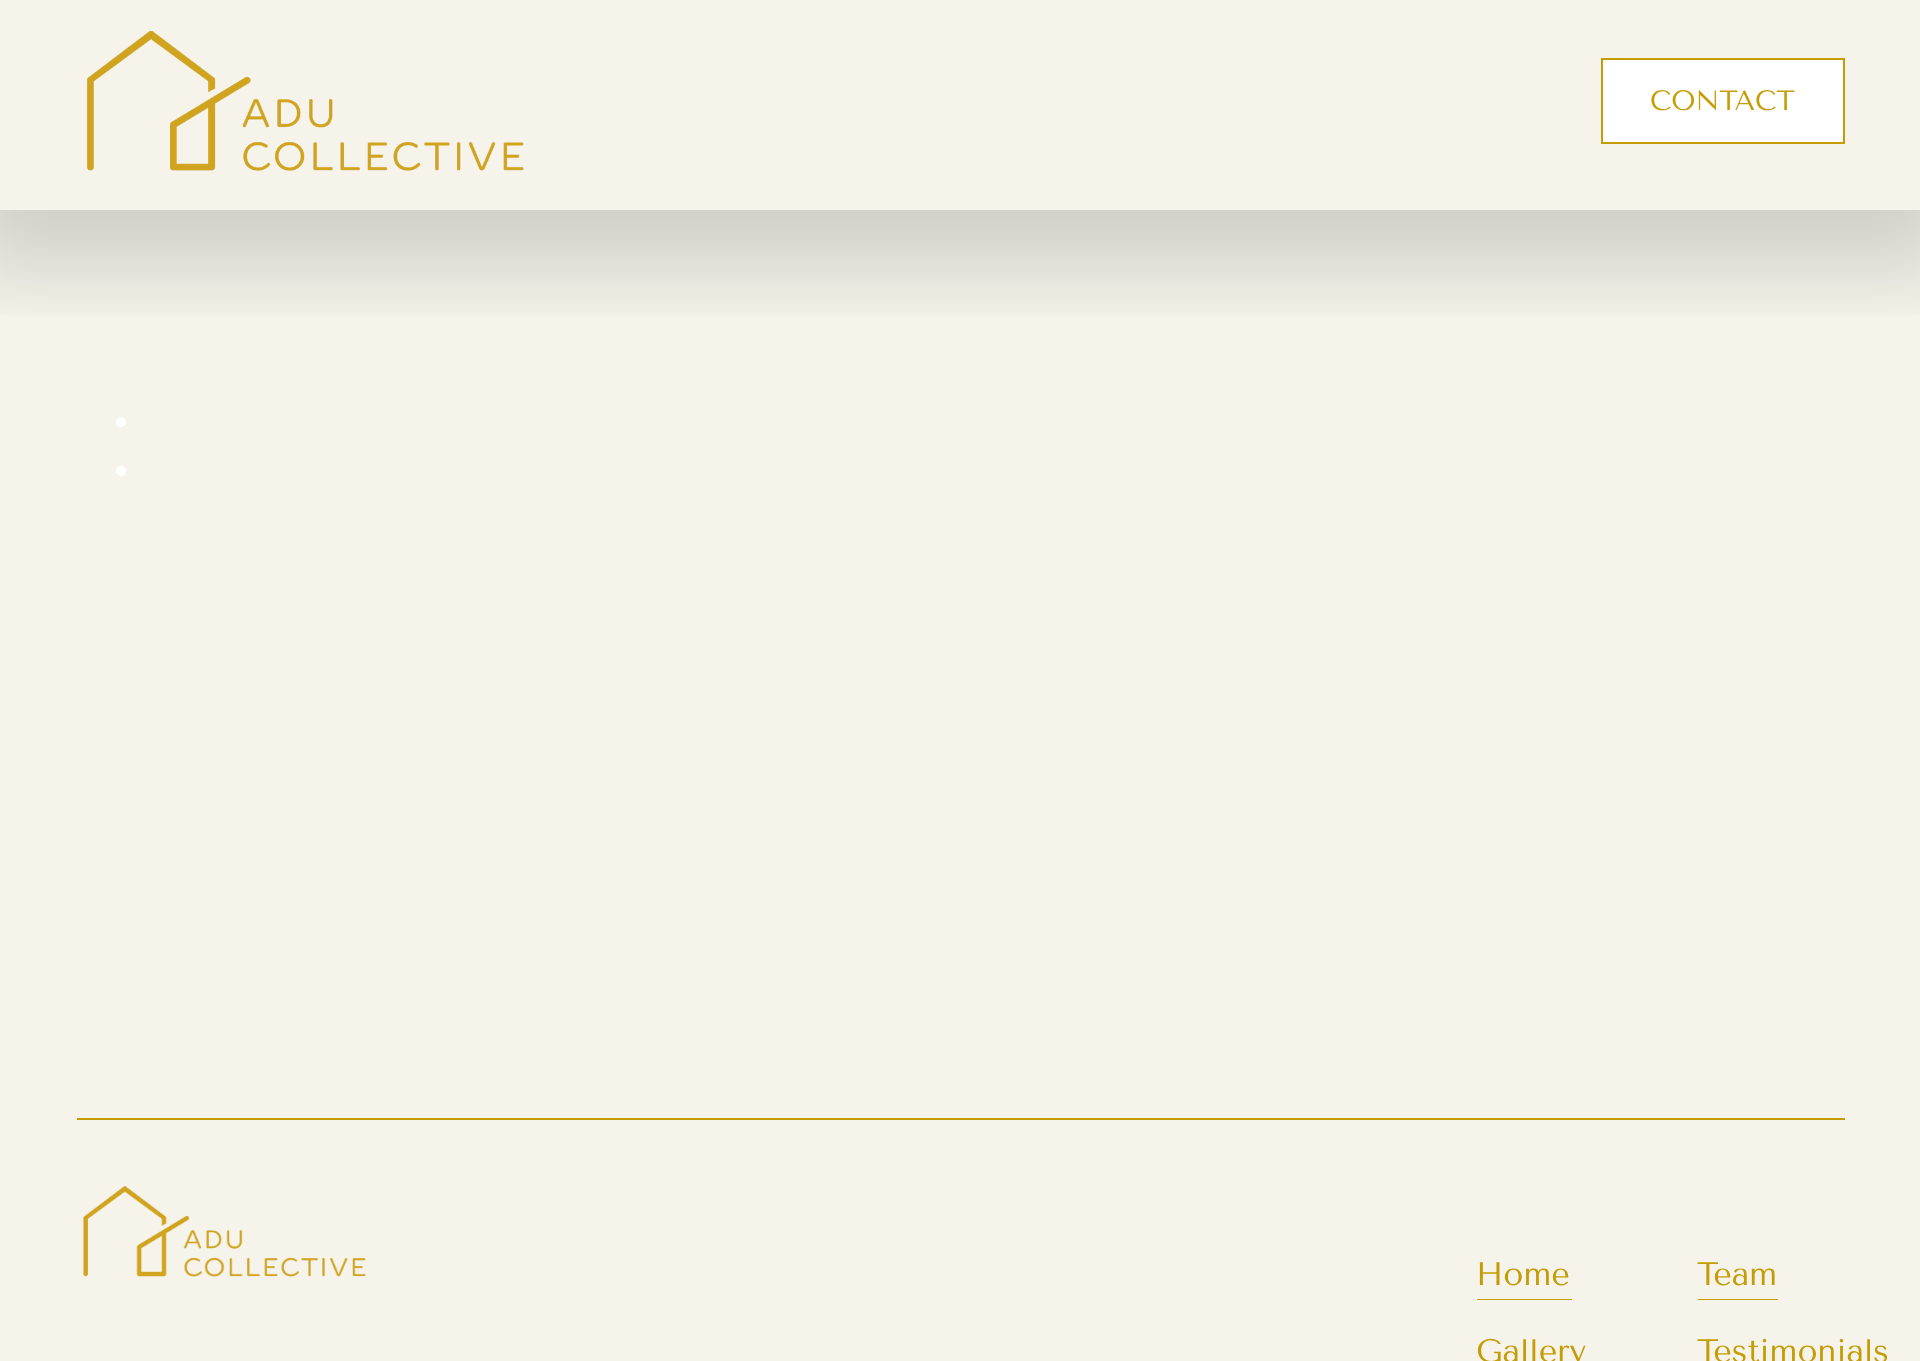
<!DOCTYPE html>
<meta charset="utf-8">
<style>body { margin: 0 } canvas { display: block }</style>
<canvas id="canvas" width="1920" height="1361"></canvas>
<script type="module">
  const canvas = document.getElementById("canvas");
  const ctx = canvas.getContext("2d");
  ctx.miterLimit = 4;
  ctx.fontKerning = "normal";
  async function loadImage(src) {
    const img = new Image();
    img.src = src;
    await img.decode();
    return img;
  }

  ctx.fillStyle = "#f6f3eb";
  ctx.fillRect(0, 0, 1920, 1361);
  ctx.save();
  ctx.beginPath();
  ctx.rect(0, 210, 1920, 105);
  ctx.clip();
  ctx.fillStyle = "rgba(0, 0, 0, 0.15)";
  ctx.filter = "blur(42px)";
  ctx.beginPath();
  ctx.rect(-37, -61, 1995, 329);
  ctx.fill();
  ctx.filter = "none";
  ctx.restore();
  ctx.drawImage(await loadImage("img1.png"), 87, 31, 437, 140);
  ctx.fillStyle = "#ffffff";
  ctx.beginPath();
  ctx.rect(1602, 59, 242, 84);
  ctx.fill();
  ctx.strokeStyle = "#c49c04";
  ctx.lineWidth = 2;
  ctx.stroke();
  ctx.font = "28px Tenor Sans";
  ctx.fillStyle = "#c49c04";
  ctx.fillText("CONTACT", 1650, 110);
  ctx.fillStyle = "#ffffff";
  ctx.beginPath();
  ctx.arc(121, 422, 5, 0, Math.PI * 2);
  ctx.fill();
  ctx.beginPath();
  ctx.arc(121, 471, 5, 0, Math.PI * 2);
  ctx.fill();
  ctx.fillStyle = "#c49c04";
  ctx.fillRect(77, 1118, 1768, 2);
  ctx.drawImage(await loadImage("img2.png"), 83, 1186, 283, 91);
  ctx.fillRect(1477, 1299, 95, 1);
  ctx.font = "32.5px Tenor Sans";
  ctx.fillText("Home", 1476, 1285);
  ctx.fillText("Gallery", 1476, 1362);
  ctx.fillRect(1698, 1299, 80, 1);
  ctx.fillText("Team", 1697, 1285);
  ctx.fillText("Testimonials", 1697, 1362);
</script>
